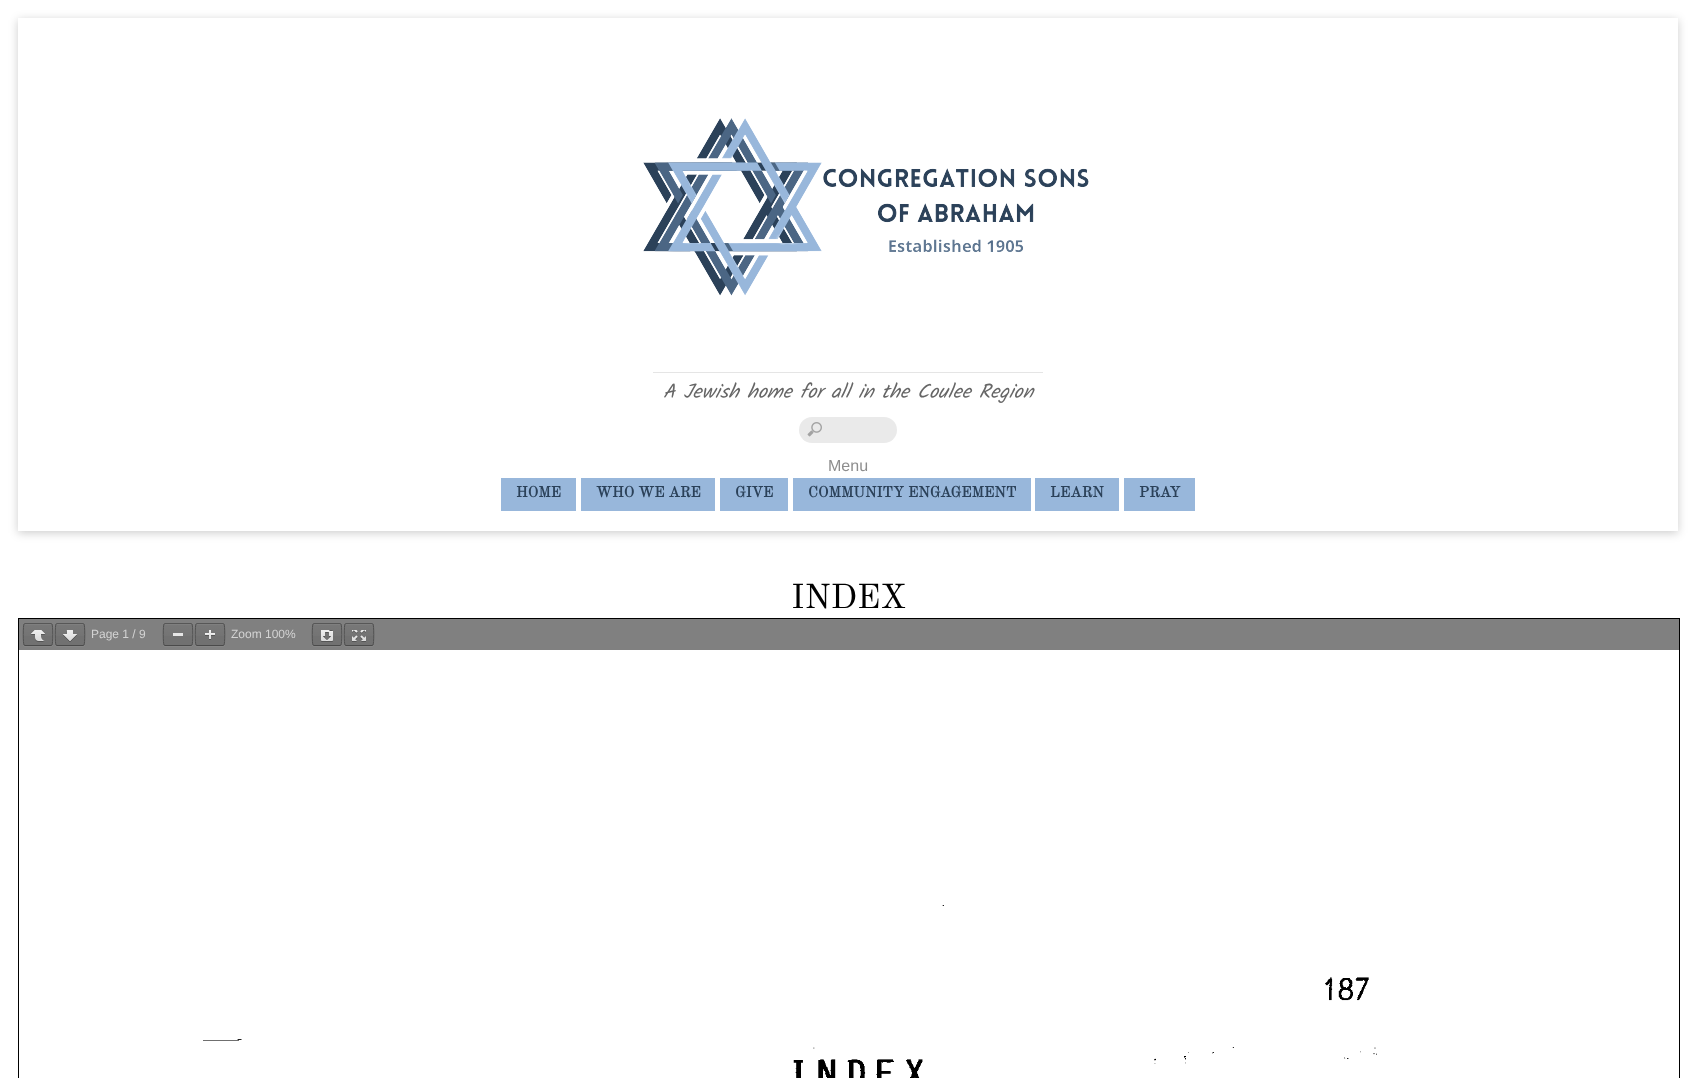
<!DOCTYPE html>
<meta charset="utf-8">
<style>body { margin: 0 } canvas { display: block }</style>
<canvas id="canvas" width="1696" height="1078"></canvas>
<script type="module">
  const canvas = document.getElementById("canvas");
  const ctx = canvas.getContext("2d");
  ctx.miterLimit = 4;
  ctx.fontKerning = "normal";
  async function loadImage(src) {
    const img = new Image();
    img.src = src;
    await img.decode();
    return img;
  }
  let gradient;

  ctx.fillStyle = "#ffffff";
  ctx.fillRect(0, 0, 1696, 1078);
  ctx.save();
  ctx.beginPath();
  ctx.moveTo(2, 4);
  ctx.lineTo(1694, 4);
  ctx.lineTo(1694, 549);
  ctx.lineTo(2, 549);
  ctx.closePath();
  ctx.moveTo(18, 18);
  ctx.lineTo(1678, 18);
  ctx.lineTo(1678, 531);
  ctx.lineTo(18, 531);
  ctx.closePath();
  ctx.clip("evenodd");
  ctx.fillStyle = "rgba(0, 0, 0, 0.2)";
  ctx.filter = "blur(5px)";
  ctx.beginPath();
  ctx.rect(18, 20, 1660, 513);
  ctx.fill();
  ctx.filter = "none";
  ctx.restore();
  ctx.drawImage(await loadImage("img1.png"), 643, 118, 446, 178);
  ctx.fillStyle = "#e5e5e5";
  ctx.fillRect(653, 372, 390, 1);
  ctx.font = "italic 20px Kalam";
  ctx.fillStyle = "#666666";
  ctx.fillText("A Jewish home for all in the Coulee Region", 663, 398);
  ctx.fillStyle = "#eaeaea";
  ctx.beginPath();
  ctx.roundRect(799, 417, 98, 26, 13);
  ctx.fill();
  ctx.drawImage(await loadImage("img2.png"), 807, 422, 15, 15);
  ctx.font = "16px Liberation Sans";
  ctx.fillStyle = "#8d8d8d";
  ctx.fillText("Menu", 828, 471);
  ctx.fillStyle = "#98b7db";
  ctx.fillRect(501, 478, 75, 33);
  ctx.font = "bold 14.9px Old Standard TT";
  ctx.fillStyle = "#2b4159";
  ctx.fillText("HOME", 516, 497);
  ctx.fillStyle = "#98b7db";
  ctx.fillRect(581, 478, 134, 33);
  ctx.fillStyle = "#2b4159";
  ctx.fillText("WHO WE ARE", 596, 497);
  ctx.fillStyle = "#98b7db";
  ctx.fillRect(720, 478, 68, 33);
  ctx.fillStyle = "#2b4159";
  ctx.fillText("GIVE", 735, 497);
  ctx.fillStyle = "#98b7db";
  ctx.fillRect(793, 478, 238, 33);
  ctx.fillStyle = "#2b4159";
  ctx.fillText("COMMUNITY ENGAGEMENT", 808, 497);
  ctx.fillStyle = "#98b7db";
  ctx.fillRect(1035, 478, 84, 33);
  ctx.fillStyle = "#2b4159";
  ctx.fillText("LEARN", 1050, 497);
  ctx.fillStyle = "#98b7db";
  ctx.fillRect(1124, 478, 71, 33);
  ctx.fillStyle = "#2b4159";
  ctx.fillText("PRAY", 1139, 497);
  ctx.font = "34px Old Standard TT";
  ctx.fillStyle = "#000000";
  ctx.fillText("INDEX", 791, 608);
  ctx.strokeStyle = "#000000";
  ctx.strokeRect(18.5, 618.5, 1661, 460);
  ctx.fillStyle = "#808080";
  ctx.fillRect(19, 619, 1660, 31);
  ctx.fillStyle = "#868686";
  ctx.beginPath();
  ctx.moveTo(23, 644);
  ctx.bezierCurveTo(23, 648, 25.5, 647, 29.5, 647);
  ctx.lineTo(46.5, 647);
  ctx.bezierCurveTo(50.5, 647, 53, 648, 53, 644);
  ctx.bezierCurveTo(53, 645, 52, 646, 51, 646);
  ctx.lineTo(25, 646);
  ctx.bezierCurveTo(24, 646, 23, 645, 23, 644);
  ctx.closePath();
  ctx.fill();
  ctx.fillStyle = "#717171";
  ctx.beginPath();
  ctx.roundRect(24, 624, 28, 21, 1);
  ctx.fill();
  gradient = ctx.createLinearGradient(38, 624, 38, 645);
  gradient.addColorStop(0, "rgba(255, 255, 255, 0.05)");
  gradient.addColorStop(1, "rgba(255, 255, 255, 0)");
  ctx.fillStyle = gradient;
  ctx.fillRect(24, 624, 28, 12);
  ctx.fillStyle = "#7f7f7f";
  ctx.beginPath();
  ctx.moveTo(25, 625);
  ctx.lineTo(52, 625);
  ctx.lineTo(52, 626);
  ctx.bezierCurveTo(52, 623, 50, 624, 46.5, 624);
  ctx.lineTo(29.5, 624);
  ctx.bezierCurveTo(26, 624, 24, 623, 24, 626);
  ctx.bezierCurveTo(24, 625, 24, 625, 25, 625);
  ctx.closePath();
  ctx.fill();
  ctx.beginPath();
  ctx.moveTo(24, 624);
  ctx.lineTo(25, 623.5);
  ctx.lineTo(51, 623.5);
  ctx.lineTo(52, 624);
  ctx.strokeStyle = "#575757";
  ctx.stroke();
  ctx.beginPath();
  ctx.moveTo(52, 624);
  ctx.bezierCurveTo(53, 625, 53, 644, 52, 645);
  ctx.strokeStyle = "#4f4f4f";
  ctx.stroke();
  ctx.beginPath();
  ctx.moveTo(52, 645);
  ctx.lineTo(51, 645.5);
  ctx.lineTo(25, 645.5);
  ctx.lineTo(24, 645);
  ctx.strokeStyle = "#4a4a4a";
  ctx.stroke();
  ctx.beginPath();
  ctx.moveTo(24, 645);
  ctx.bezierCurveTo(23, 644, 23, 625, 24, 624);
  ctx.strokeStyle = "#4f4f4f";
  ctx.stroke();
  ctx.drawImage(await loadImage("img3.png"), 31, 630, 14, 12);
  ctx.fillStyle = "#868686";
  ctx.beginPath();
  ctx.moveTo(55, 644);
  ctx.bezierCurveTo(55, 648, 57.5, 647, 61.5, 647);
  ctx.lineTo(78.5, 647);
  ctx.bezierCurveTo(82.5, 647, 85, 648, 85, 644);
  ctx.bezierCurveTo(85, 645, 84, 646, 83, 646);
  ctx.lineTo(57, 646);
  ctx.bezierCurveTo(56, 646, 55, 645, 55, 644);
  ctx.closePath();
  ctx.fill();
  ctx.fillStyle = "#717171";
  ctx.beginPath();
  ctx.roundRect(56, 624, 28, 21, 1);
  ctx.fill();
  gradient = ctx.createLinearGradient(70, 624, 70, 645);
  gradient.addColorStop(0, "rgba(255, 255, 255, 0.05)");
  gradient.addColorStop(1, "rgba(255, 255, 255, 0)");
  ctx.fillStyle = gradient;
  ctx.fillRect(56, 624, 28, 12);
  ctx.fillStyle = "#7f7f7f";
  ctx.beginPath();
  ctx.moveTo(57, 625);
  ctx.lineTo(84, 625);
  ctx.lineTo(84, 626);
  ctx.bezierCurveTo(84, 623, 82, 624, 78.5, 624);
  ctx.lineTo(61.5, 624);
  ctx.bezierCurveTo(58, 624, 56, 623, 56, 626);
  ctx.bezierCurveTo(56, 625, 56, 625, 57, 625);
  ctx.closePath();
  ctx.fill();
  ctx.beginPath();
  ctx.moveTo(56, 624);
  ctx.lineTo(57, 623.5);
  ctx.lineTo(83, 623.5);
  ctx.lineTo(84, 624);
  ctx.strokeStyle = "#575757";
  ctx.stroke();
  ctx.beginPath();
  ctx.moveTo(84, 624);
  ctx.bezierCurveTo(85, 625, 85, 644, 84, 645);
  ctx.strokeStyle = "#4f4f4f";
  ctx.stroke();
  ctx.beginPath();
  ctx.moveTo(84, 645);
  ctx.lineTo(83, 645.5);
  ctx.lineTo(57, 645.5);
  ctx.lineTo(56, 645);
  ctx.strokeStyle = "#4a4a4a";
  ctx.stroke();
  ctx.beginPath();
  ctx.moveTo(56, 645);
  ctx.bezierCurveTo(55, 644, 55, 625, 56, 624);
  ctx.strokeStyle = "#4f4f4f";
  ctx.stroke();
  ctx.drawImage(await loadImage("img4.png"), 63, 630, 14, 12);
  ctx.font = "12px Liberation Sans";
  ctx.fillStyle = "#d3d3d3";
  ctx.fillText("Page 1 / 9", 91, 638);
  ctx.fillStyle = "#868686";
  ctx.beginPath();
  ctx.moveTo(163, 644);
  ctx.bezierCurveTo(163, 648, 165.5, 647, 169.5, 647);
  ctx.lineTo(186.5, 647);
  ctx.bezierCurveTo(190.5, 647, 193, 648, 193, 644);
  ctx.bezierCurveTo(193, 645, 192, 646, 191, 646);
  ctx.lineTo(165, 646);
  ctx.bezierCurveTo(164, 646, 163, 645, 163, 644);
  ctx.closePath();
  ctx.fill();
  ctx.fillStyle = "#717171";
  ctx.beginPath();
  ctx.roundRect(164, 624, 28, 21, 1);
  ctx.fill();
  gradient = ctx.createLinearGradient(178, 624, 178, 645);
  gradient.addColorStop(0, "rgba(255, 255, 255, 0.05)");
  gradient.addColorStop(1, "rgba(255, 255, 255, 0)");
  ctx.fillStyle = gradient;
  ctx.fillRect(164, 624, 28, 12);
  ctx.fillStyle = "#7f7f7f";
  ctx.beginPath();
  ctx.moveTo(165, 625);
  ctx.lineTo(192, 625);
  ctx.lineTo(192, 626);
  ctx.bezierCurveTo(192, 623, 190, 624, 186.5, 624);
  ctx.lineTo(169.5, 624);
  ctx.bezierCurveTo(166, 624, 164, 623, 164, 626);
  ctx.bezierCurveTo(164, 625, 164, 625, 165, 625);
  ctx.closePath();
  ctx.fill();
  ctx.beginPath();
  ctx.moveTo(164, 624);
  ctx.lineTo(165, 623.5);
  ctx.lineTo(191, 623.5);
  ctx.lineTo(192, 624);
  ctx.strokeStyle = "#575757";
  ctx.stroke();
  ctx.beginPath();
  ctx.moveTo(192, 624);
  ctx.bezierCurveTo(193, 625, 193, 644, 192, 645);
  ctx.strokeStyle = "#4f4f4f";
  ctx.stroke();
  ctx.beginPath();
  ctx.moveTo(192, 645);
  ctx.lineTo(191, 645.5);
  ctx.lineTo(165, 645.5);
  ctx.lineTo(164, 645);
  ctx.strokeStyle = "#4a4a4a";
  ctx.stroke();
  ctx.beginPath();
  ctx.moveTo(164, 645);
  ctx.bezierCurveTo(163, 644, 163, 625, 164, 624);
  ctx.strokeStyle = "#4f4f4f";
  ctx.stroke();
  ctx.fillStyle = "#e6e6e6";
  ctx.fillRect(173, 633, 10, 3);
  ctx.fillStyle = "#868686";
  ctx.beginPath();
  ctx.moveTo(195, 644);
  ctx.bezierCurveTo(195, 648, 197.5, 647, 201.5, 647);
  ctx.lineTo(218.5, 647);
  ctx.bezierCurveTo(222.5, 647, 225, 648, 225, 644);
  ctx.bezierCurveTo(225, 645, 224, 646, 223, 646);
  ctx.lineTo(197, 646);
  ctx.bezierCurveTo(196, 646, 195, 645, 195, 644);
  ctx.closePath();
  ctx.fill();
  ctx.fillStyle = "#717171";
  ctx.beginPath();
  ctx.roundRect(196, 624, 28, 21, 1);
  ctx.fill();
  gradient = ctx.createLinearGradient(210, 624, 210, 645);
  gradient.addColorStop(0, "rgba(255, 255, 255, 0.05)");
  gradient.addColorStop(1, "rgba(255, 255, 255, 0)");
  ctx.fillStyle = gradient;
  ctx.fillRect(196, 624, 28, 12);
  ctx.fillStyle = "#7f7f7f";
  ctx.beginPath();
  ctx.moveTo(197, 625);
  ctx.lineTo(224, 625);
  ctx.lineTo(224, 626);
  ctx.bezierCurveTo(224, 623, 222, 624, 218.5, 624);
  ctx.lineTo(201.5, 624);
  ctx.bezierCurveTo(198, 624, 196, 623, 196, 626);
  ctx.bezierCurveTo(196, 625, 196, 625, 197, 625);
  ctx.closePath();
  ctx.fill();
  ctx.beginPath();
  ctx.moveTo(196, 624);
  ctx.lineTo(197, 623.5);
  ctx.lineTo(223, 623.5);
  ctx.lineTo(224, 624);
  ctx.strokeStyle = "#575757";
  ctx.stroke();
  ctx.beginPath();
  ctx.moveTo(224, 624);
  ctx.bezierCurveTo(225, 625, 225, 644, 224, 645);
  ctx.strokeStyle = "#4f4f4f";
  ctx.stroke();
  ctx.beginPath();
  ctx.moveTo(224, 645);
  ctx.lineTo(223, 645.5);
  ctx.lineTo(197, 645.5);
  ctx.lineTo(196, 645);
  ctx.strokeStyle = "#4a4a4a";
  ctx.stroke();
  ctx.beginPath();
  ctx.moveTo(196, 645);
  ctx.bezierCurveTo(195, 644, 195, 625, 196, 624);
  ctx.strokeStyle = "#4f4f4f";
  ctx.stroke();
  ctx.drawImage(await loadImage("img5.png"), 205, 630, 10, 10);
  ctx.fillStyle = "#d3d3d3";
  ctx.fillText("Zoom 100%", 231, 638);
  ctx.fillStyle = "#868686";
  ctx.beginPath();
  ctx.moveTo(312, 644);
  ctx.bezierCurveTo(312, 648, 314.5, 647, 318.5, 647);
  ctx.lineTo(335.5, 647);
  ctx.bezierCurveTo(339.5, 647, 342, 648, 342, 644);
  ctx.bezierCurveTo(342, 645, 341, 646, 340, 646);
  ctx.lineTo(314, 646);
  ctx.bezierCurveTo(313, 646, 312, 645, 312, 644);
  ctx.closePath();
  ctx.fill();
  ctx.fillStyle = "#717171";
  ctx.beginPath();
  ctx.roundRect(313, 624, 28, 21, 1);
  ctx.fill();
  gradient = ctx.createLinearGradient(327, 624, 327, 645);
  gradient.addColorStop(0, "rgba(255, 255, 255, 0.05)");
  gradient.addColorStop(1, "rgba(255, 255, 255, 0)");
  ctx.fillStyle = gradient;
  ctx.fillRect(313, 624, 28, 12);
  ctx.fillStyle = "#7f7f7f";
  ctx.beginPath();
  ctx.moveTo(314, 625);
  ctx.lineTo(341, 625);
  ctx.lineTo(341, 626);
  ctx.bezierCurveTo(341, 623, 339, 624, 335.5, 624);
  ctx.lineTo(318.5, 624);
  ctx.bezierCurveTo(315, 624, 313, 623, 313, 626);
  ctx.bezierCurveTo(313, 625, 313, 625, 314, 625);
  ctx.closePath();
  ctx.fill();
  ctx.beginPath();
  ctx.moveTo(313, 624);
  ctx.lineTo(314, 623.5);
  ctx.lineTo(340, 623.5);
  ctx.lineTo(341, 624);
  ctx.strokeStyle = "#575757";
  ctx.stroke();
  ctx.beginPath();
  ctx.moveTo(341, 624);
  ctx.bezierCurveTo(342, 625, 342, 644, 341, 645);
  ctx.strokeStyle = "#4f4f4f";
  ctx.stroke();
  ctx.beginPath();
  ctx.moveTo(341, 645);
  ctx.lineTo(340, 645.5);
  ctx.lineTo(314, 645.5);
  ctx.lineTo(313, 645);
  ctx.strokeStyle = "#4a4a4a";
  ctx.stroke();
  ctx.beginPath();
  ctx.moveTo(313, 645);
  ctx.bezierCurveTo(312, 644, 312, 625, 313, 624);
  ctx.strokeStyle = "#4f4f4f";
  ctx.stroke();
  ctx.drawImage(await loadImage("img6.png"), 321, 630, 12, 12);
  ctx.fillStyle = "#868686";
  ctx.beginPath();
  ctx.moveTo(344, 644);
  ctx.bezierCurveTo(344, 648, 346.5, 647, 350.5, 647);
  ctx.lineTo(367.5, 647);
  ctx.bezierCurveTo(371.5, 647, 374, 648, 374, 644);
  ctx.bezierCurveTo(374, 645, 373, 646, 372, 646);
  ctx.lineTo(346, 646);
  ctx.bezierCurveTo(345, 646, 344, 645, 344, 644);
  ctx.closePath();
  ctx.fill();
  ctx.fillStyle = "#717171";
  ctx.beginPath();
  ctx.roundRect(345, 624, 28, 21, 1);
  ctx.fill();
  gradient = ctx.createLinearGradient(359, 624, 359, 645);
  gradient.addColorStop(0, "rgba(255, 255, 255, 0.05)");
  gradient.addColorStop(1, "rgba(255, 255, 255, 0)");
  ctx.fillStyle = gradient;
  ctx.fillRect(345, 624, 28, 12);
  ctx.fillStyle = "#7f7f7f";
  ctx.beginPath();
  ctx.moveTo(346, 625);
  ctx.lineTo(373, 625);
  ctx.lineTo(373, 626);
  ctx.bezierCurveTo(373, 623, 371, 624, 367.5, 624);
  ctx.lineTo(350.5, 624);
  ctx.bezierCurveTo(347, 624, 345, 623, 345, 626);
  ctx.bezierCurveTo(345, 625, 345, 625, 346, 625);
  ctx.closePath();
  ctx.fill();
  ctx.beginPath();
  ctx.moveTo(345, 624);
  ctx.lineTo(346, 623.5);
  ctx.lineTo(372, 623.5);
  ctx.lineTo(373, 624);
  ctx.strokeStyle = "#575757";
  ctx.stroke();
  ctx.beginPath();
  ctx.moveTo(373, 624);
  ctx.bezierCurveTo(374, 625, 374, 644, 373, 645);
  ctx.strokeStyle = "#4f4f4f";
  ctx.stroke();
  ctx.beginPath();
  ctx.moveTo(373, 645);
  ctx.lineTo(372, 645.5);
  ctx.lineTo(346, 645.5);
  ctx.lineTo(345, 645);
  ctx.strokeStyle = "#4a4a4a";
  ctx.stroke();
  ctx.beginPath();
  ctx.moveTo(345, 645);
  ctx.bezierCurveTo(344, 644, 344, 625, 345, 624);
  ctx.strokeStyle = "#4f4f4f";
  ctx.stroke();
  ctx.drawImage(await loadImage("img7.png"), 352, 630, 14, 12);
  ctx.drawImage(await loadImage("img8.png"), 203, 905, 1174, 173);
</script>
